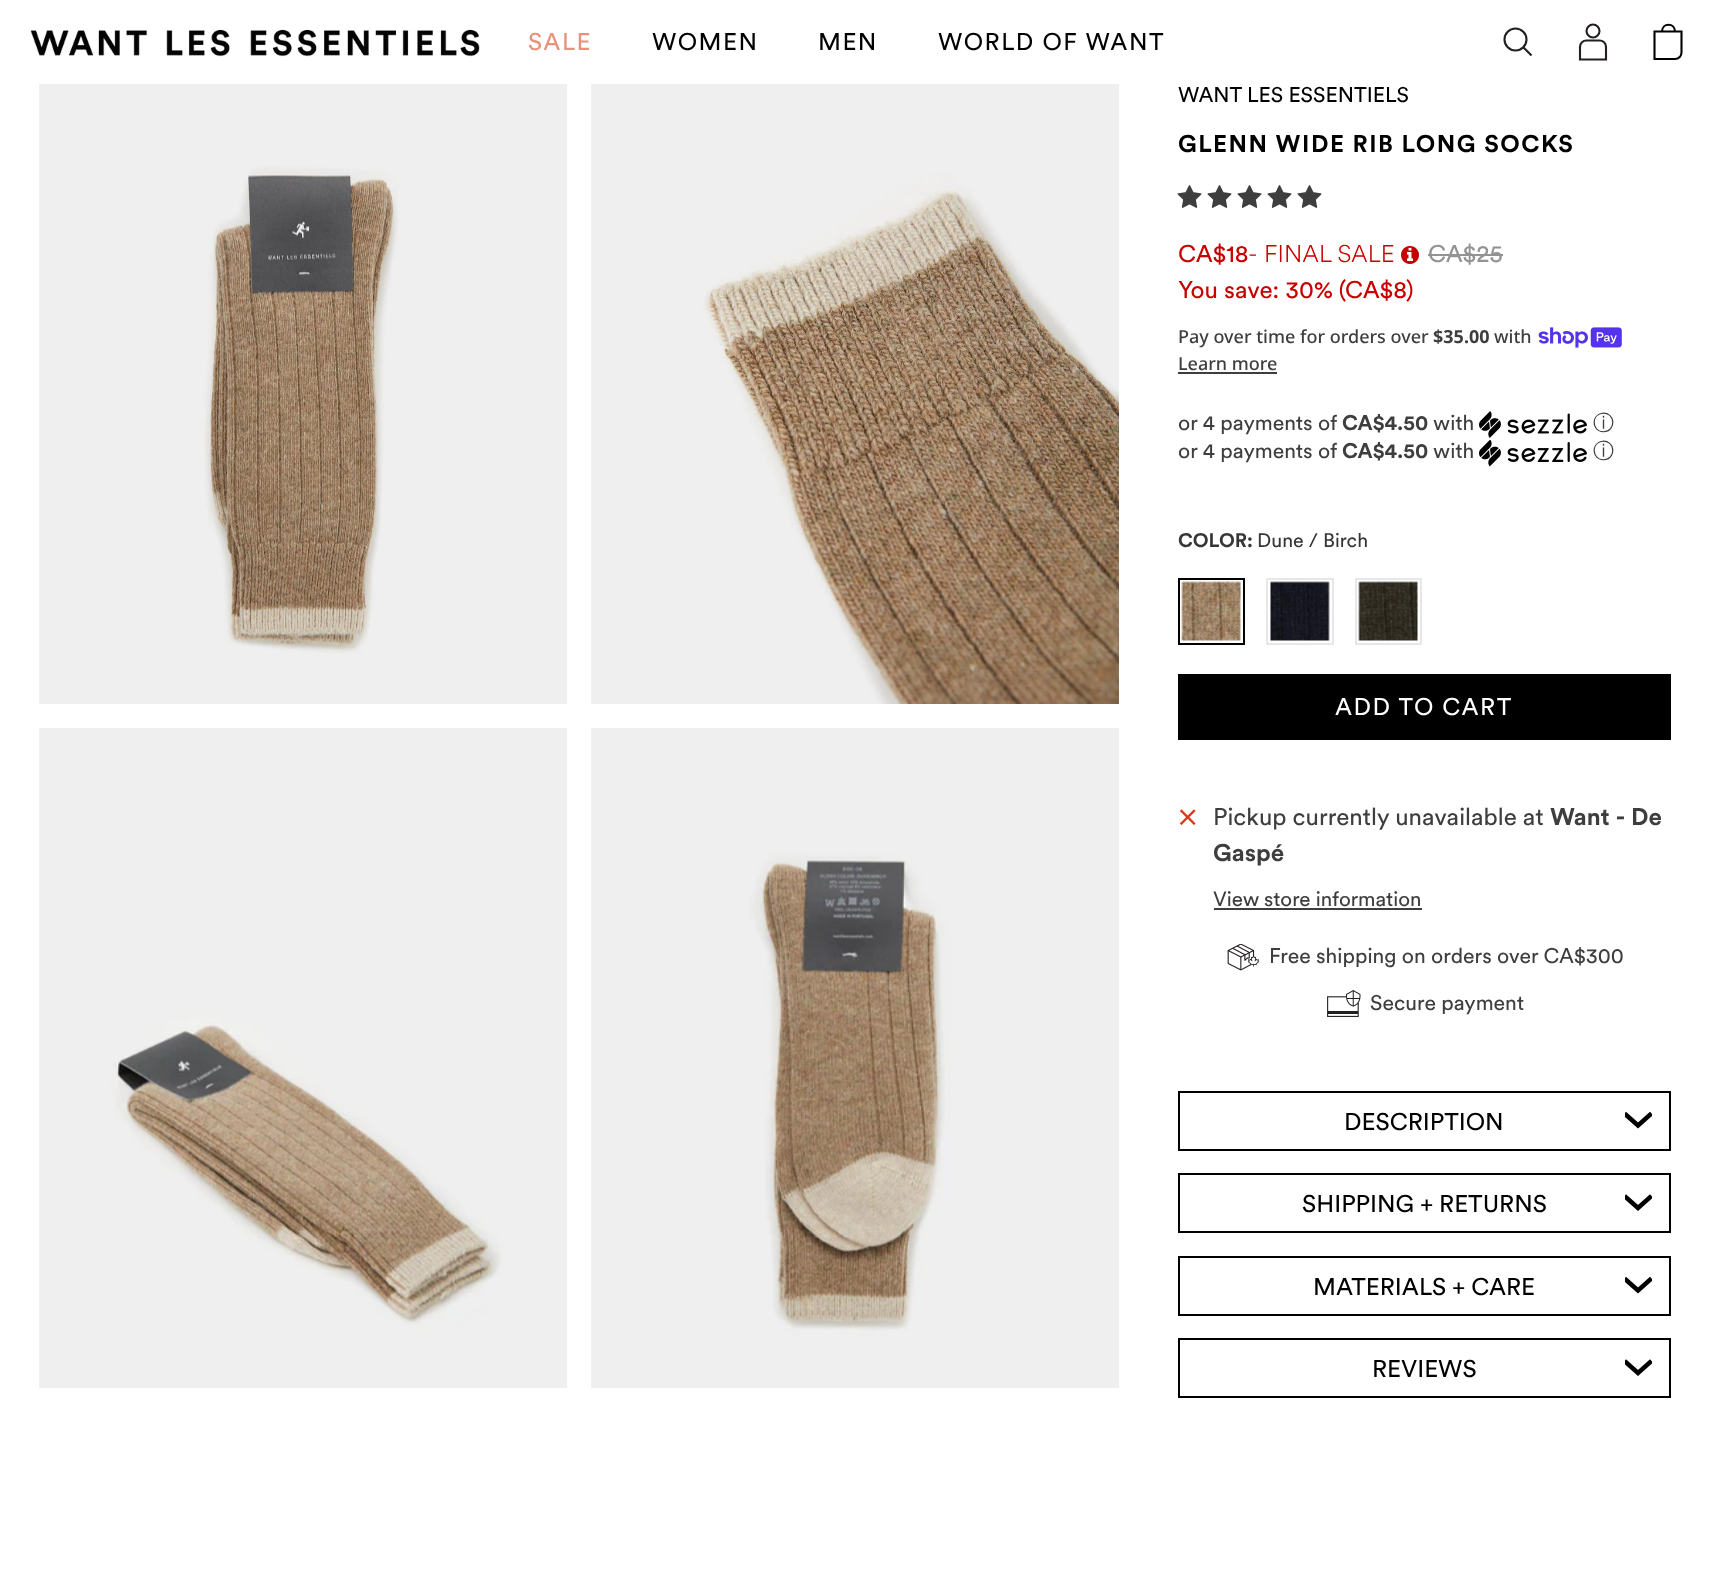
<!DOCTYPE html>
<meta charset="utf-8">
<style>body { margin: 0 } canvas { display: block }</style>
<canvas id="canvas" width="1709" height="1594"></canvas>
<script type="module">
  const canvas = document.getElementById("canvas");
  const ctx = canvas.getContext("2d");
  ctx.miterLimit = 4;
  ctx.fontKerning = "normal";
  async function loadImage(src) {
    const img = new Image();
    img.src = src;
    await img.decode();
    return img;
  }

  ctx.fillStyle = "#ffffff";
  ctx.fillRect(0, 0, 1709, 1594);
  ctx.drawImage(await loadImage("img1.png"), 30, 29, 450, 28);
  ctx.letterSpacing = "1.5px";
  ctx.font = "24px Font";
  ctx.fillStyle = "#e8927c";
  ctx.fillText("SALE", 528, 50);
  ctx.fillStyle = "#000000";
  ctx.fillText("WOMEN", 652, 50);
  ctx.fillText("MEN", 818, 50);
  ctx.fillText("WORLD OF WANT", 938, 50);
  ctx.beginPath();
  ctx.arc(1515.5, 39.5, 11, 0, Math.PI * 2);
  ctx.strokeStyle = "#231f20";
  ctx.lineWidth = 2.1;
  ctx.stroke();
  ctx.beginPath();
  ctx.moveTo(1531.5, 55.5);
  ctx.lineTo(1523.5, 47.5);
  ctx.stroke();
  ctx.beginPath();
  ctx.moveTo(1593, 40.5);
  ctx.lineTo(1599.5, 40.5);
  ctx.bezierCurveTo(1603, 40.5, 1606, 43, 1606, 47);
  ctx.lineTo(1606, 59.5);
  ctx.lineTo(1580, 59.5);
  ctx.lineTo(1580, 47);
  ctx.bezierCurveTo(1580, 43, 1583, 40.5, 1586.5, 40.5);
  ctx.lineTo(1593, 40.5);
  ctx.stroke();
  ctx.beginPath();
  ctx.arc(1593, 31, 6.5, 0, Math.PI * 2);
  ctx.stroke();
  ctx.beginPath();
  ctx.moveTo(1681.5, 31.5);
  ctx.lineTo(1681.5, 52.5);
  ctx.bezierCurveTo(1681.5, 56, 1679, 59, 1675, 59);
  ctx.lineTo(1654.5, 59);
  ctx.lineTo(1654.5, 31.5);
  ctx.closePath();
  ctx.moveTo(1662, 31.5);
  ctx.bezierCurveTo(1662, 22.5, 1675, 22.5, 1675, 31.5);
  ctx.moveTo(1675.5, 59);
  ctx.lineTo(1675, 59);
  ctx.strokeStyle = "#000000";
  ctx.stroke();
  ctx.drawImage(await loadImage("img2.png"), 39, 84, 528, 620);
  ctx.drawImage(await loadImage("img3.png"), 591, 84, 528, 620);
  ctx.drawImage(await loadImage("img4.png"), 39, 728, 528, 660);
  ctx.drawImage(await loadImage("img5.png"), 591, 728, 528, 660);
  ctx.letterSpacing = "0px";
  ctx.font = "21px Font";
  ctx.fillText("WANT LES ESSENTIELS", 1178, 102);
  ctx.letterSpacing = "1.5px";
  ctx.font = "bold 24px Font";
  ctx.fillText("GLENN WIDE RIB LONG SOCKS", 1178, 152);
  ctx.drawImage(await loadImage("img6.png"), 1177, 185, 25, 23);
  ctx.drawImage(await loadImage("img6.png"), 1207, 185, 25, 23);
  ctx.drawImage(await loadImage("img6.png"), 1237, 185, 25, 23);
  ctx.drawImage(await loadImage("img6.png"), 1267, 185, 25, 23);
  ctx.drawImage(await loadImage("img6.png"), 1297, 185, 25, 23);
  ctx.letterSpacing = "0px";
  ctx.font = "24px Font";
  ctx.fillStyle = "#c70000";
  ctx.fillText("CA$18", 1178, 262);
  ctx.font = "300 24px Font";
  ctx.fillText("- FINAL SALE", 1248, 262);
  ctx.drawImage(await loadImage("img7.png"), 1401, 246, 18, 18);
  ctx.font = "24px Font";
  ctx.fillStyle = "#939393";
  ctx.fillText("CA$25", 1428, 262);
  ctx.fillRect(1428, 254, 75, 2);
  ctx.fillStyle = "#c70000";
  ctx.fillText("You save: 30% (", 1178, 298);
  ctx.fillText("CA$8", 1345, 298);
  ctx.fillText(")", 1406, 298);
  ctx.font = "500 18px Noto Sans";
  ctx.fillStyle = "#3e3e3e";
  ctx.fillText("Pay over time for orders over", 1178, 343);
  ctx.font = "bold 18px Noto Sans";
  ctx.fillText("$35.00", 1433, 343);
  ctx.font = "500 18px Noto Sans";
  ctx.fillText("with", 1494, 343);
  ctx.drawImage(await loadImage("img8.png"), 1538, 327, 84, 21);
  ctx.fillText("Learn more", 1178, 370);
  ctx.fillRect(1178, 372, 99, 2);
  ctx.font = "21px Font";
  ctx.fillText("or 4 payments of", 1178, 430);
  ctx.font = "bold 21px Font";
  ctx.fillText("CA$4.50", 1342, 430);
  ctx.font = "21px Font";
  ctx.fillText("with", 1433, 430);
  ctx.drawImage(await loadImage("img9.png"), 1479, 411, 108, 27);
  ctx.font = "500 21px WenQuanYi Zen Hei";
  ctx.fillText("ⓘ", 1593, 430);
  ctx.font = "21px Font";
  ctx.fillText("or 4 payments of", 1178, 458);
  ctx.font = "bold 21px Font";
  ctx.fillText("CA$4.50", 1342, 458);
  ctx.font = "21px Font";
  ctx.fillText("with", 1433, 458);
  ctx.drawImage(await loadImage("img10.png"), 1479, 440, 108, 27);
  ctx.font = "500 21px WenQuanYi Zen Hei";
  ctx.fillText("ⓘ", 1593, 458);
  ctx.font = "bold 19.5px Font";
  ctx.fillStyle = "#363636";
  ctx.fillText("COLOR:", 1178, 547);
  ctx.font = "19.5px Font";
  ctx.fillText("Dune / Birch", 1257, 547);
  ctx.lineWidth = 2;
  ctx.strokeRect(1179, 579, 65, 65);
  ctx.strokeStyle = "#e7e7e7";
  ctx.strokeRect(1267, 579, 66, 65);
  ctx.strokeRect(1356, 579, 65, 65);
  ctx.drawImage(await loadImage("img11.png"), 1181, 581, 60, 60);
  ctx.drawImage(await loadImage("img12.png"), 1270, 581, 60, 60);
  ctx.drawImage(await loadImage("img13.png"), 1358, 581, 60, 60);
  ctx.fillStyle = "#000000";
  ctx.fillRect(1178, 674, 493, 66);
  ctx.letterSpacing = "1.5px";
  ctx.font = "24px Font";
  ctx.fillStyle = "#ffffff";
  ctx.fillText("ADD TO CART", 1335, 715);
  ctx.drawImage(await loadImage("img14.png"), 1179, 809, 17, 16);
  ctx.letterSpacing = "0px";
  ctx.fillStyle = "#3e3e3e";
  ctx.fillText("Pickup currently unavailable at", 1213, 825);
  ctx.font = "bold 24px Font";
  ctx.fillText("Want - De", 1550, 825);
  ctx.fillText("Gaspé", 1213, 861);
  ctx.font = "20.4px Font";
  ctx.fillText("View store information", 1213, 906);
  ctx.fillRect(1214, 908, 208, 2);
  ctx.drawImage(await loadImage("img15.png"), 1227, 944, 33, 27);
  ctx.font = "21px Font";
  ctx.fillText("Free shipping on orders over CA$300", 1269, 963);
  ctx.drawImage(await loadImage("img16.png"), 1327, 990, 34, 27);
  ctx.fillText("Secure payment", 1370, 1010);
  ctx.strokeStyle = "#000000";
  ctx.strokeRect(1179, 1092, 491, 58);
  ctx.font = "24px Font";
  ctx.fillStyle = "#000000";
  ctx.fillText("DESCRIPTION", 1344, 1130);
  ctx.save();
  ctx.beginPath();
  ctx.rect(1625, 1106, 27, 27);
  ctx.clip();
  ctx.beginPath();
  ctx.moveTo(1624.5, 1113.5);
  ctx.lineTo(1638, 1125.5);
  ctx.lineTo(1651.5, 1113.5);
  ctx.lineWidth = 4.5;
  ctx.stroke();
  ctx.restore();
  ctx.strokeRect(1179, 1174, 491, 58);
  ctx.fillText("SHIPPING + RETURNS", 1302, 1212);
  ctx.save();
  ctx.beginPath();
  ctx.rect(1625, 1188, 27, 27);
  ctx.clip();
  ctx.beginPath();
  ctx.moveTo(1624.5, 1196);
  ctx.lineTo(1638, 1208);
  ctx.lineTo(1651.5, 1196);
  ctx.lineWidth = 4.5;
  ctx.stroke();
  ctx.restore();
  ctx.strokeRect(1179, 1257, 491, 58);
  ctx.fillText("MATERIALS + CARE", 1313, 1295);
  ctx.save();
  ctx.beginPath();
  ctx.rect(1625, 1271, 27, 27);
  ctx.clip();
  ctx.beginPath();
  ctx.moveTo(1624.5, 1278.5);
  ctx.lineTo(1638, 1290.5);
  ctx.lineTo(1651.5, 1278.5);
  ctx.lineWidth = 4.5;
  ctx.stroke();
  ctx.restore();
  ctx.strokeRect(1179, 1339, 491, 58);
  ctx.fillText("REVIEWS", 1372, 1377);
  ctx.save();
  ctx.beginPath();
  ctx.rect(1625, 1353, 27, 27);
  ctx.clip();
  ctx.beginPath();
  ctx.moveTo(1624.5, 1361);
  ctx.lineTo(1638, 1373);
  ctx.lineTo(1651.5, 1361);
  ctx.lineWidth = 4.5;
  ctx.stroke();
  ctx.restore();
</script>
